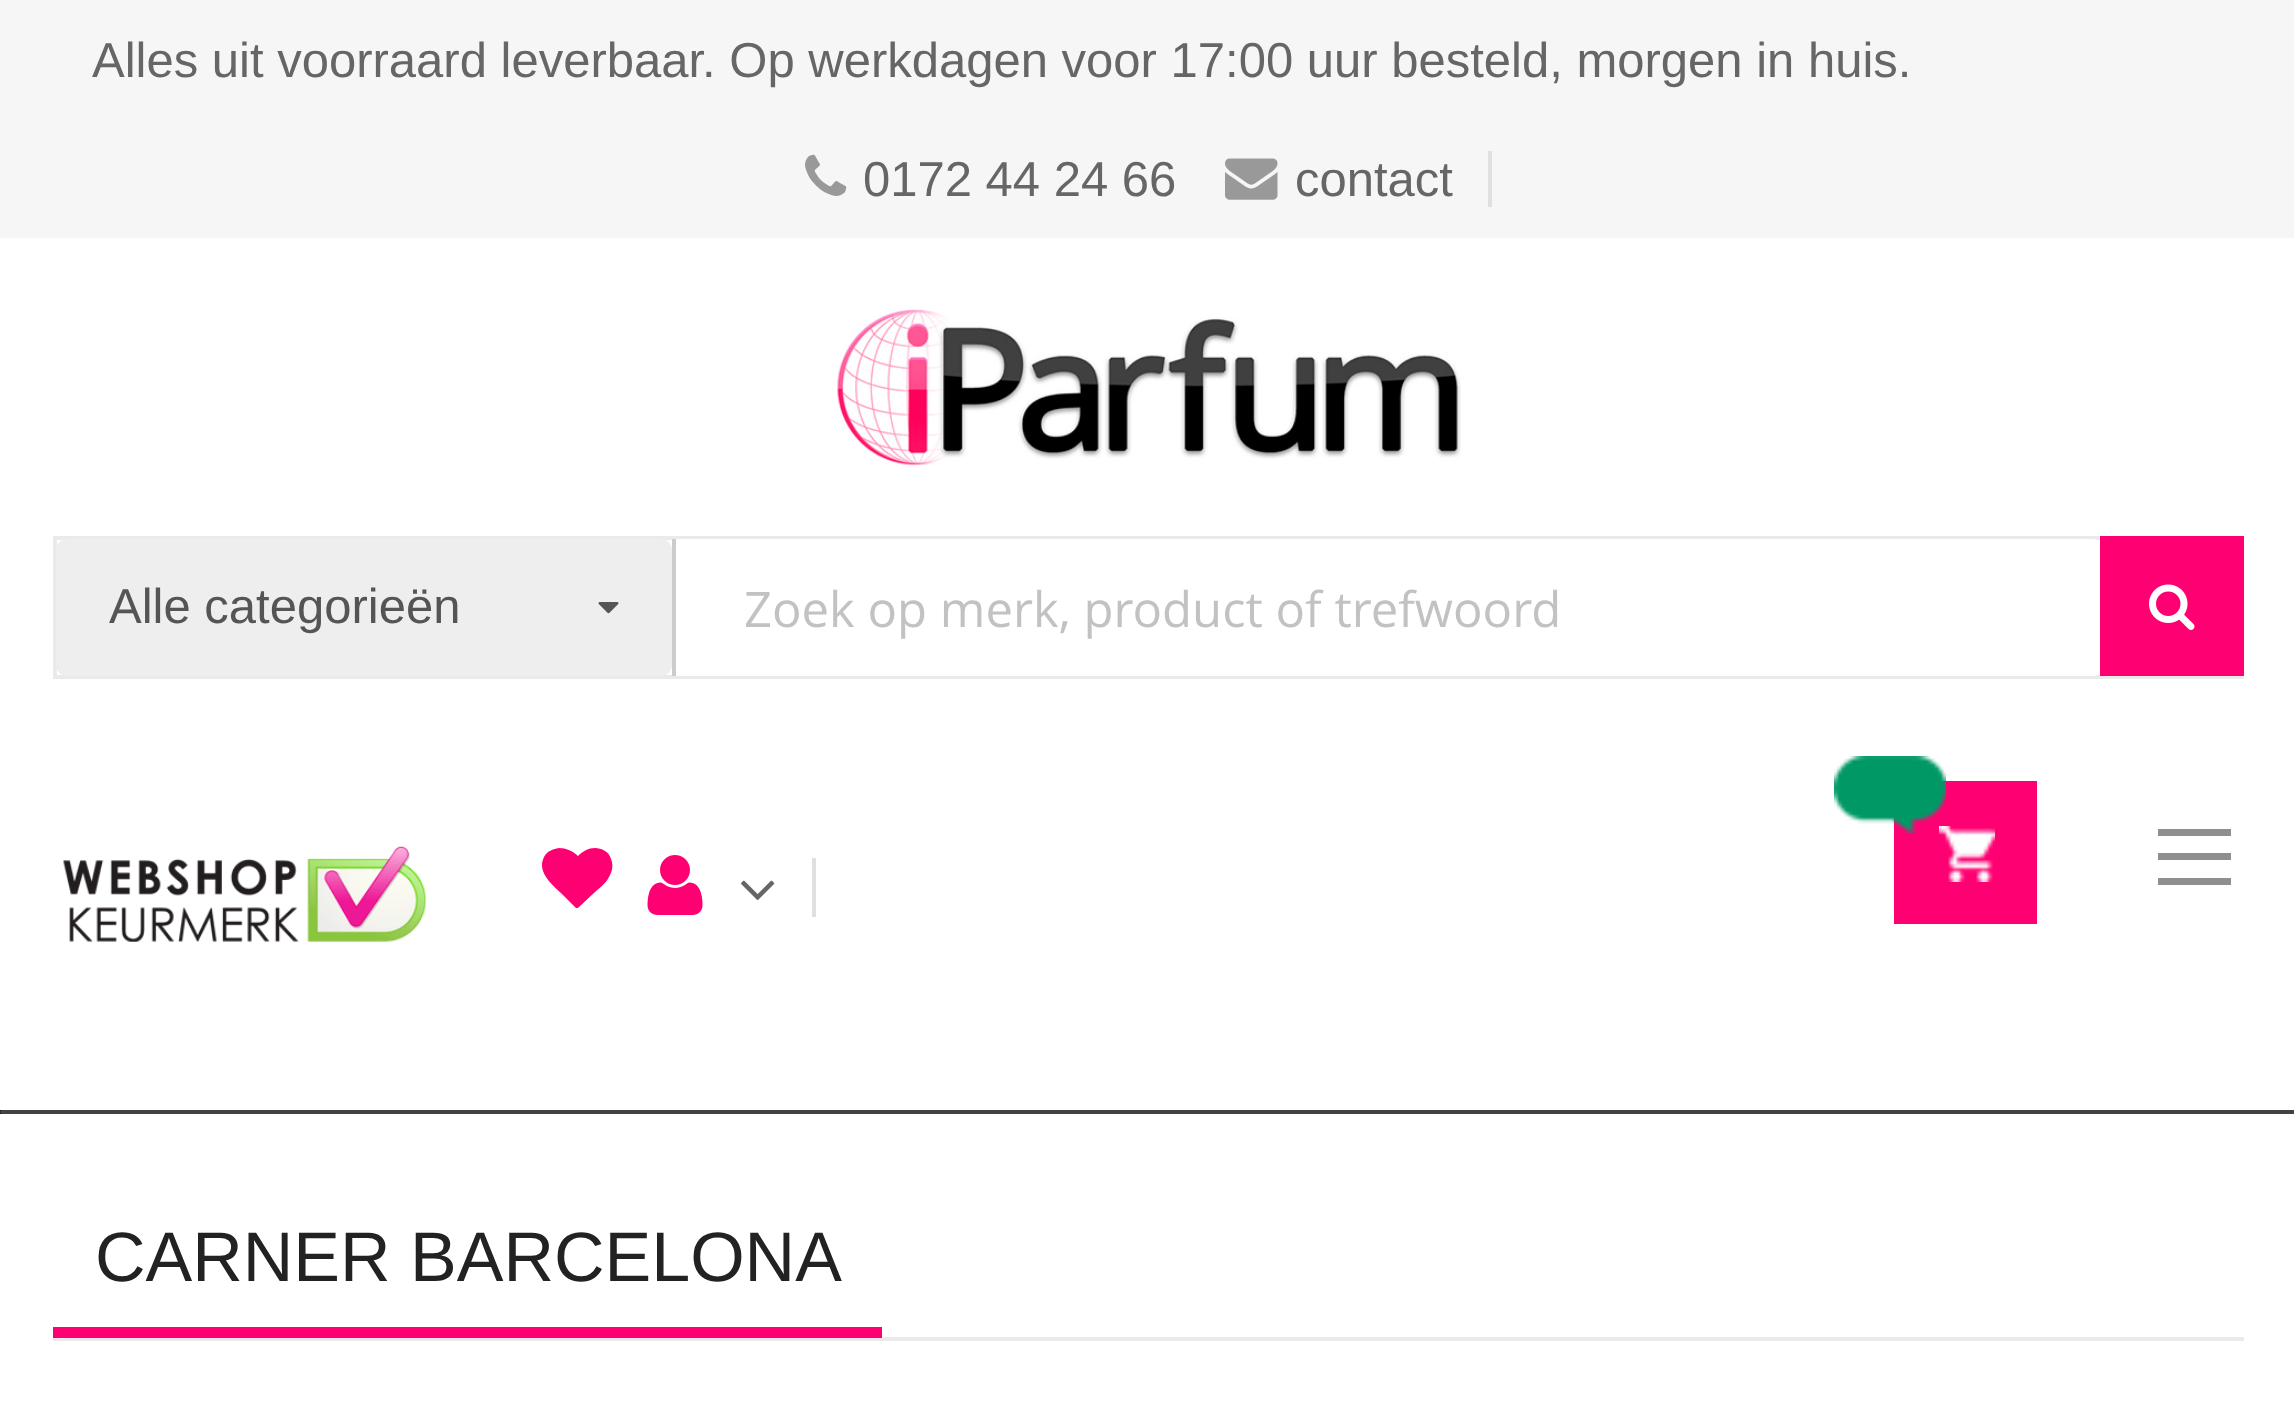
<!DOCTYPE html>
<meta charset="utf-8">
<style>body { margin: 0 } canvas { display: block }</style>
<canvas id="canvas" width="2294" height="1422"></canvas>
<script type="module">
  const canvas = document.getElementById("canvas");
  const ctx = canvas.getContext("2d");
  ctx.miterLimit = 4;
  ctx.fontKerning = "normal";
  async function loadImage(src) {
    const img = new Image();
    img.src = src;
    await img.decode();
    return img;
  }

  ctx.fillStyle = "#ffffff";
  ctx.fillRect(0, 0, 2294, 1422);
  ctx.fillStyle = "#f6f6f6";
  ctx.fillRect(0, 0, 2294, 238);
  ctx.font = "49px Liberation Sans";
  ctx.fillStyle = "#666666";
  ctx.fillText("Alles uit voorraard leverbaar. Op werkdagen voor 17:00 uur besteld, morgen in huis.", 92, 77);
  ctx.drawImage(await loadImage("img1.png"), 805, 154, 42, 42);
  ctx.fillText("0172 44 24 66", 863, 196);
  ctx.fillStyle = "#e0e0e0";
  ctx.fillRect(1488, 151, 4, 56);
  ctx.drawImage(await loadImage("img2.png"), 1225, 158, 53, 42);
  ctx.fillStyle = "#666666";
  ctx.fillText("contact", 1295, 196);
  ctx.drawImage(await loadImage("img3.png"), 837, 309, 624, 157);
  ctx.strokeStyle = "#eaeaea";
  ctx.lineWidth = 4;
  ctx.strokeRect(55, 538, 2187, 139);
  ctx.fillStyle = "#eeeeee";
  ctx.beginPath();
  ctx.roundRect(56, 539, 616, 137, 11);
  ctx.fill();
  ctx.fillStyle = "#555555";
  ctx.fillText("Alle categorieën", 109, 623);
  ctx.drawImage(await loadImage("img4.png"), 598, 602, 21, 12);
  ctx.fillStyle = "#ffffff";
  ctx.beginPath();
  ctx.roundRect(676, 539, 1428, 137, [0, 11, 11, 0]);
  ctx.fill();
  ctx.fillStyle = "#cccccc";
  ctx.fillRect(672, 539, 4, 137);
  ctx.save();
  ctx.beginPath();
  ctx.rect(746, 574, 1288, 67);
  ctx.clip();
  ctx.font = "49px Open Sans";
  ctx.fillStyle = "#c2c2c2";
  ctx.fillText("Zoek op merk, product of trefwoord", 744, 627);
  ctx.restore();
  ctx.fillStyle = "#ff0072";
  ctx.fillRect(2100, 536, 144, 140);
  ctx.drawImage(await loadImage("img5.png"), 2149, 584, 46, 46);
  ctx.drawImage(await loadImage("img6.png"), 63, 846, 363, 96);
  ctx.beginPath();
  ctx.moveTo(579, 907);
  ctx.bezierCurveTo(578, 908, 577, 908, 576, 908);
  ctx.lineTo(564, 896);
  ctx.bezierCurveTo(554, 886, 536, 873, 544, 857);
  ctx.bezierCurveTo(547, 851, 553, 849, 559, 848);
  ctx.bezierCurveTo(566, 848, 573, 851, 578, 856);
  ctx.bezierCurveTo(585, 849, 595, 845, 605, 851);
  ctx.bezierCurveTo(609, 853, 611, 858, 612, 862);
  ctx.bezierCurveTo(613, 867, 612, 871, 610, 875);
  ctx.bezierCurveTo(607, 882, 601, 887, 595, 892);
  ctx.closePath();
  ctx.fill();
  ctx.drawImage(await loadImage("img7.png"), 647, 855, 56, 60);
  ctx.drawImage(await loadImage("img8.png"), 741, 880, 34, 20);
  ctx.fillStyle = "#e0e0e0";
  ctx.fillRect(812, 858, 4, 59);
  ctx.fillStyle = "#ff0072";
  ctx.fillRect(1894, 781, 143, 143);
  ctx.drawImage(await loadImage("img10.png"), 1939, 826, 56, 56);
  ctx.drawImage(await loadImage("img9.png"), 1834, 756, 112, 77);
  ctx.fillStyle = "#8f8f8f";
  ctx.beginPath();
  ctx.moveTo(2158, 829);
  ctx.lineTo(2158, 836);
  ctx.lineTo(2231, 836);
  ctx.lineTo(2231, 829);
  ctx.closePath();
  ctx.moveTo(2158, 860);
  ctx.lineTo(2231, 860);
  ctx.lineTo(2231, 853);
  ctx.lineTo(2158, 853);
  ctx.closePath();
  ctx.moveTo(2158, 885);
  ctx.lineTo(2231, 885);
  ctx.lineTo(2231, 878);
  ctx.lineTo(2158, 878);
  ctx.closePath();
  ctx.fill();
  ctx.fillStyle = "#000000";
  ctx.fillRect(0, 1110, 2, 4);
  ctx.fillStyle = "#3f4346";
  ctx.beginPath();
  ctx.roundRect(0, 1110, 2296, 4, 2);
  ctx.fill();
  ctx.fillStyle = "#eaeaea";
  ctx.fillRect(53, 1337, 2191, 4);
  ctx.fillStyle = "#ff0072";
  ctx.fillRect(53, 1327, 829, 11);
  ctx.font = "70px Liberation Sans";
  ctx.fillStyle = "#222222";
  ctx.fillText("CARNER BARCELONA", 95, 1281);
</script>
